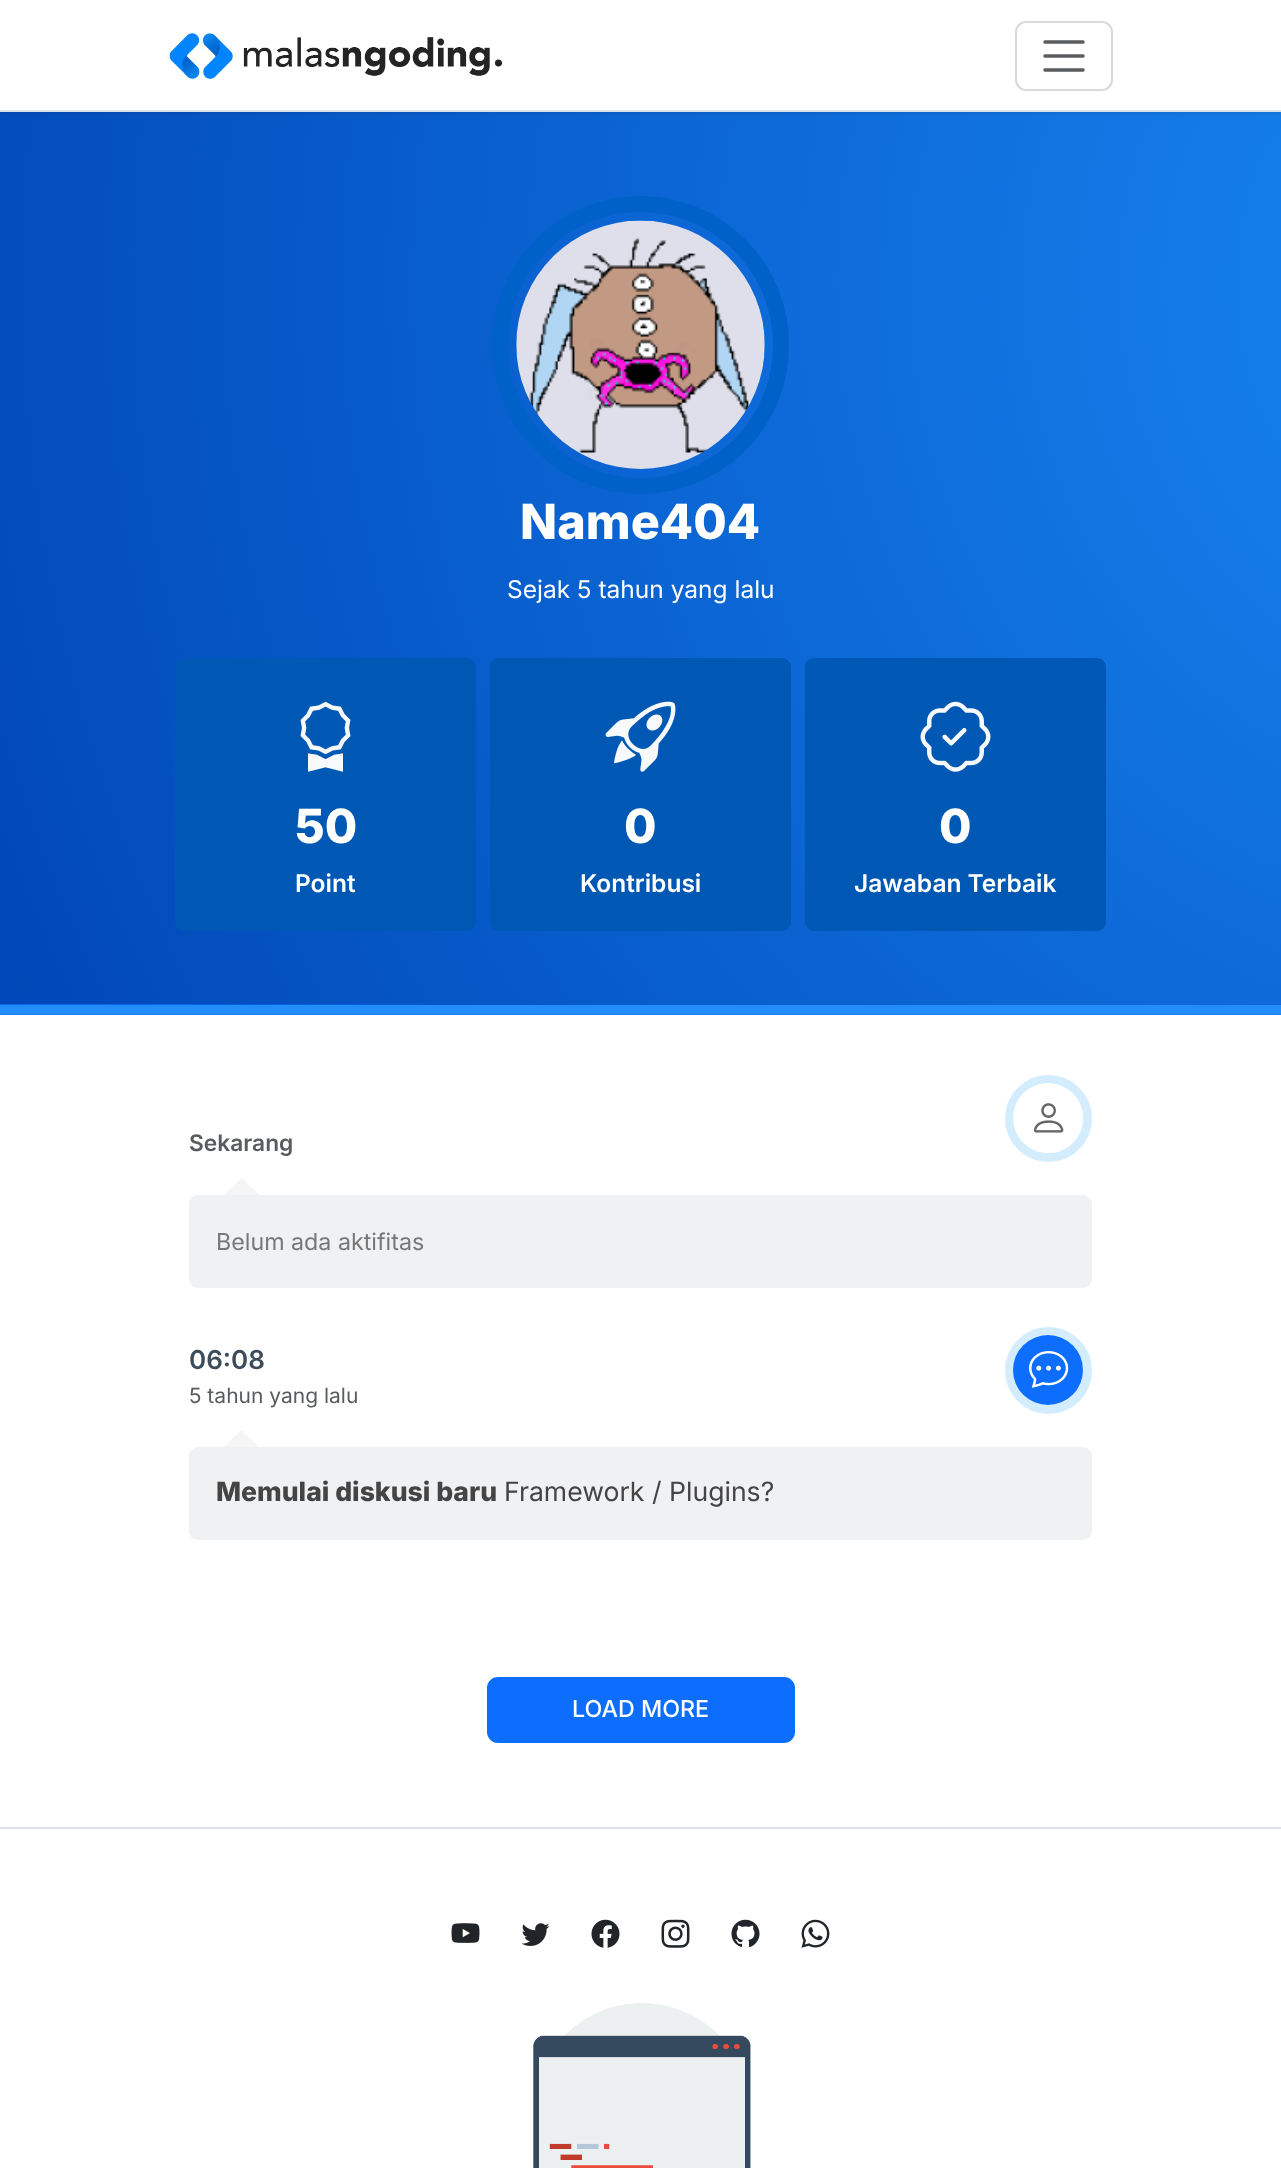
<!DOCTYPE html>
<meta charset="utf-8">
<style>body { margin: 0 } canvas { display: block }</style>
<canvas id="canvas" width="1281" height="2168"></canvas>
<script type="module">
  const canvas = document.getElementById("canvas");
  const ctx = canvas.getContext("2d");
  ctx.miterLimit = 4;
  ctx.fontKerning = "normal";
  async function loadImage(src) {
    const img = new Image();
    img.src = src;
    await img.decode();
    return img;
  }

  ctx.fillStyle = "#ffffff";
  ctx.fillRect(0, 0, 1281, 2168);
  ctx.fillStyle = "#0d6efd";
  ctx.fillRect(0, 1004, 1281, 11);
  ctx.drawImage(await loadImage("img2.png"), 0, 112, 1281, 903);
  ctx.save();
  ctx.beginPath();
  ctx.rect(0, 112, 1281, 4);
  ctx.clip();
  ctx.fillStyle = "rgba(17, 24, 39, 0.09)";
  ctx.filter = "blur(2.5px)";
  ctx.beginPath();
  ctx.rect(0, 2, 1281, 112);
  ctx.fill();
  ctx.filter = "none";
  ctx.restore();
  ctx.fillStyle = "#dee2e6";
  ctx.fillRect(0, 110, 1281, 2);
  ctx.drawImage(await loadImage("img1.png"), 169, 33, 334, 46);
  ctx.beginPath();
  ctx.roundRect(1016, 22, 96, 68, 10);
  ctx.strokeStyle = "#d9d9d9";
  ctx.lineWidth = 2;
  ctx.stroke();
  ctx.beginPath();
  ctx.moveTo(1045, 42);
  ctx.lineTo(1083, 42);
  ctx.moveTo(1045, 56);
  ctx.lineTo(1083, 56);
  ctx.moveTo(1045, 70);
  ctx.lineTo(1083, 70);
  ctx.strokeStyle = "#595c5f";
  ctx.lineWidth = 3.5;
  ctx.lineCap = "round";
  ctx.stroke();
  ctx.beginPath();
  ctx.roundRect(500, 204, 281, 282, 140.5);
  ctx.strokeStyle = "#0061c8";
  ctx.lineWidth = 16;
  ctx.stroke();
  ctx.drawImage(await loadImage("img3.png"), 516, 220, 249, 249);
  ctx.font = "800 48.5px Inter";
  ctx.fillStyle = "#ffffff";
  ctx.fillText("Name404", 520, 539);
  ctx.font = "24.5px Inter";
  ctx.fillText("Sejak 5 tahun yang lalu", 507, 598);
  ctx.fillStyle = "#0058b5";
  ctx.beginPath();
  ctx.roundRect(175, 658, 301, 273, 9);
  ctx.fill();
  ctx.drawImage(await loadImage("img4.png"), 300, 701, 51, 71);
  ctx.font = "800 47px Inter";
  ctx.fillStyle = "#ffffff";
  ctx.fillText("50", 295, 843);
  ctx.font = "600 24.5px Inter";
  ctx.fillText("Point", 295, 892);
  ctx.fillStyle = "#0058b5";
  ctx.beginPath();
  ctx.roundRect(490, 658, 301, 273, 9);
  ctx.fill();
  ctx.drawImage(await loadImage("img5.png"), 605, 701, 71, 71);
  ctx.font = "800 47px Inter";
  ctx.fillStyle = "#ffffff";
  ctx.fillText("0", 624, 843);
  ctx.font = "600 24.5px Inter";
  ctx.fillText("Kontribusi", 580, 892);
  ctx.fillStyle = "#0058b5";
  ctx.beginPath();
  ctx.roundRect(805, 658, 301, 273, 9);
  ctx.fill();
  ctx.drawImage(await loadImage("img6.png"), 920, 701, 71, 71);
  ctx.font = "800 47px Inter";
  ctx.fillStyle = "#ffffff";
  ctx.fillText("0", 939, 843);
  ctx.font = "600 24.5px Inter";
  ctx.fillText("Jawaban Terbaik", 854, 892);
  ctx.font = "600 22.75px Inter";
  ctx.fillStyle = "#595c5f";
  ctx.fillText("Sekarang", 189, 1151);
  ctx.beginPath();
  ctx.arc(1048.5, 1118.5, 39, 0, Math.PI * 2);
  ctx.strokeStyle = "#d3edff";
  ctx.lineWidth = 9;
  ctx.stroke();
  ctx.fillStyle = "#ffffff";
  ctx.beginPath();
  ctx.arc(1048, 1118, 35, 0, Math.PI * 2);
  ctx.fill();
  ctx.drawImage(await loadImage("img7.png"), 1034, 1103, 30, 30);
  ctx.fillStyle = "#f0f1f3";
  ctx.beginPath();
  ctx.roundRect(189, 1195, 903, 93, 9);
  ctx.fill();
  ctx.fillStyle = "#f5f5f6";
  ctx.beginPath();
  ctx.moveTo(259, 1195);
  ctx.lineTo(224, 1195);
  ctx.lineTo(241.5, 1178);
  ctx.closePath();
  ctx.fill();
  ctx.font = "23.25px Inter";
  ctx.fillStyle = "#777777";
  ctx.fillText("Belum ada aktifitas", 216, 1250);
  ctx.font = "600 26px Inter";
  ctx.fillStyle = "#3d4c5a";
  ctx.fillText("06:08", 189, 1369);
  ctx.font = "21px Inter";
  ctx.fillStyle = "#595c5f";
  ctx.fillText("5 tahun yang lalu", 189, 1403);
  ctx.beginPath();
  ctx.arc(1048.5, 1370.5, 39, 0, Math.PI * 2);
  ctx.stroke();
  ctx.fillStyle = "#0d6efd";
  ctx.beginPath();
  ctx.arc(1048, 1370, 35, 0, Math.PI * 2);
  ctx.fill();
  ctx.drawImage(await loadImage("img8.png"), 1029, 1351, 40, 37);
  ctx.fillStyle = "#f0f1f3";
  ctx.beginPath();
  ctx.roundRect(189, 1447, 903, 93, 9);
  ctx.fill();
  ctx.fillStyle = "#f5f5f6";
  ctx.beginPath();
  ctx.moveTo(259, 1447);
  ctx.lineTo(224, 1447);
  ctx.lineTo(241.5, 1430);
  ctx.closePath();
  ctx.fill();
  ctx.font = "800 26.6px Inter";
  ctx.fillStyle = "#444444";
  ctx.fillText("Memulai diskusi baru", 216, 1501);
  ctx.font = "26.6px Inter";
  ctx.fillText("Framework / Plugins?", 504, 1501);
  ctx.fillStyle = "#0d6efd";
  ctx.beginPath();
  ctx.roundRect(488, 1678, 306, 64, 10);
  ctx.fill();
  ctx.strokeStyle = "#0d6efd";
  ctx.lineWidth = 2;
  ctx.stroke();
  ctx.font = "500 23.25px Inter";
  ctx.fillStyle = "#ffffff";
  ctx.fillText("LOAD MORE", 572, 1717);
  ctx.fillStyle = "#dee2e6";
  ctx.fillRect(0, 1827, 1281, 2);
  ctx.drawImage(await loadImage("img9.png"), 451, 1923, 29, 20);
  ctx.drawImage(await loadImage("img10.png"), 521, 1923, 29, 23);
  ctx.drawImage(await loadImage("img11.png"), 591, 1919, 29, 29);
  ctx.drawImage(await loadImage("img12.png"), 661, 1919, 29, 29);
  ctx.drawImage(await loadImage("img13.png"), 731, 1919, 29, 28);
  ctx.drawImage(await loadImage("img14.png"), 801, 1919, 29, 29);
  ctx.drawImage(await loadImage("img15.png"), 533, 2003, 218, 165);
</script>
